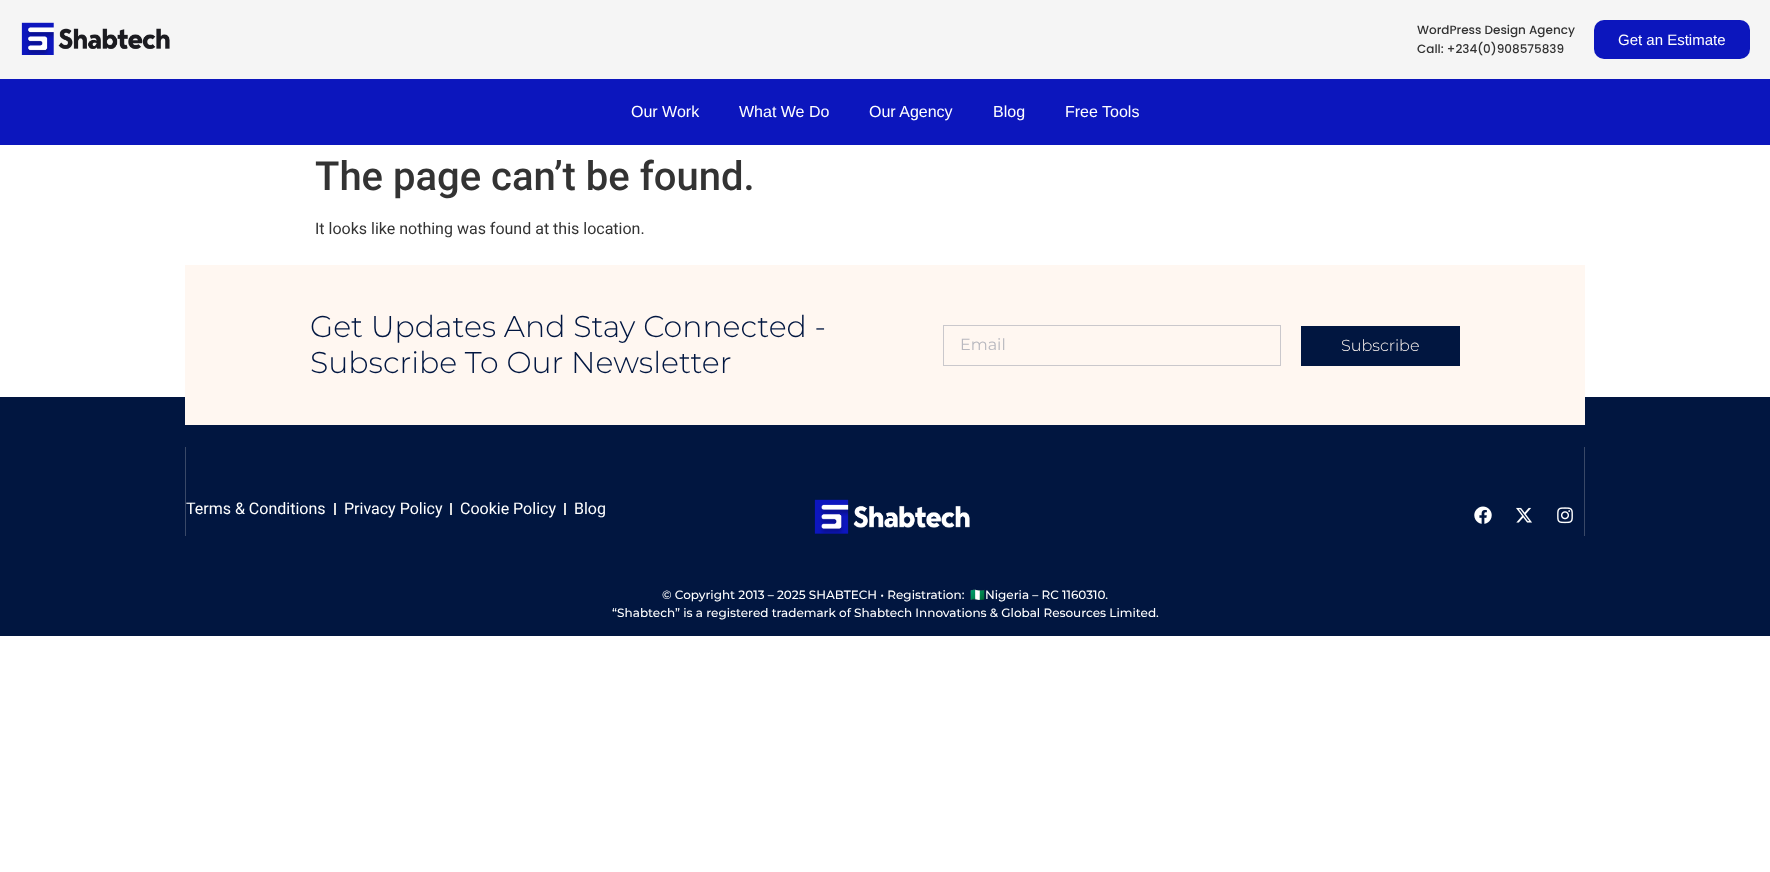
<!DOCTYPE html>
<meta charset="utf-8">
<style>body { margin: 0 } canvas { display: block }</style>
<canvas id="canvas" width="1770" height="872"></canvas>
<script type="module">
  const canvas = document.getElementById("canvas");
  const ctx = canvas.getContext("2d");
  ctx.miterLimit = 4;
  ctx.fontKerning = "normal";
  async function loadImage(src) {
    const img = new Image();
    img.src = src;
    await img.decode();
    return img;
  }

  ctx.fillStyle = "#ffffff";
  ctx.fillRect(0, 0, 1770, 872);
  ctx.fillStyle = "#f5f5f5";
  ctx.fillRect(0, 0, 1770, 79);
  ctx.drawImage(await loadImage("img1.png"), 21, 22, 149, 33);
  ctx.font = "500 12px Poppins";
  ctx.fillStyle = "#333333";
  ctx.fillText("WordPress Design Agency", 1417, 34);
  ctx.fillText("Call: +234(0)908575839", 1417, 53);
  ctx.fillStyle = "#0c16bd";
  ctx.beginPath();
  ctx.roundRect(1594, 20, 156, 39, 10);
  ctx.fill();
  ctx.font = "15px Liberation Sans";
  ctx.fillStyle = "#ffffff";
  ctx.fillText("Get an Estimate", 1618, 45);
  ctx.fillStyle = "#0c16bd";
  ctx.fillRect(0, 79, 1770, 66);
  ctx.font = "16px Liberation Sans";
  ctx.fillStyle = "#ffffff";
  ctx.fillText("Our Work", 631, 117);
  ctx.fillText("What We Do", 739, 117);
  ctx.fillText("Our Agency", 869, 117);
  ctx.fillText("Blog", 993, 117);
  ctx.fillText("Free Tools", 1065, 117);
  ctx.font = "500 40px Roboto";
  ctx.fillStyle = "#333333";
  ctx.fillText("The page can’t be found.", 315, 190);
  ctx.font = "16px Roboto";
  ctx.fillText("It looks like nothing was found at this location.", 315, 234);
  ctx.fillStyle = "#011640";
  ctx.fillRect(0, 397, 1770, 239);
  ctx.fillStyle = "#fff7f1";
  ctx.fillRect(185, 265, 1400, 160);
  ctx.font = "300 30px Montserrat";
  ctx.fillStyle = "#011640";
  ctx.fillText("Get Updates And Stay Connected -", 310, 337);
  ctx.fillText("Subscribe To Our Newsletter", 310, 373);
  ctx.strokeStyle = "#cac8cc";
  ctx.strokeRect(943.5, 325.5, 337, 40);
  ctx.font = "16px Montserrat";
  ctx.fillStyle = "#b8b8bf";
  ctx.fillText("Email", 960, 350);
  ctx.fillStyle = "#011640";
  ctx.fillRect(1301, 326, 159, 40);
  ctx.font = "300 16px Montserrat";
  ctx.fillStyle = "#fff7f1";
  ctx.fillText("Subscribe", 1341, 351);
  ctx.fillStyle = "#394867";
  ctx.fillRect(1584, 447, 1, 89);
  ctx.fillRect(185, 447, 1, 89);
  ctx.font = "16px Roboto";
  ctx.fillStyle = "#ffffff";
  ctx.fillText("Terms & Conditions", 186, 514);
  ctx.fillStyle = "#dddddd";
  ctx.fillRect(334, 503, 2, 12);
  ctx.fillStyle = "#ffffff";
  ctx.fillText("Privacy Policy", 344, 514);
  ctx.fillStyle = "#dddddd";
  ctx.fillRect(450, 503, 2, 12);
  ctx.fillStyle = "#ffffff";
  ctx.fillText("Cookie Policy", 460, 514);
  ctx.fillStyle = "#dddddd";
  ctx.fillRect(564, 503, 2, 12);
  ctx.fillStyle = "#ffffff";
  ctx.fillText("Blog", 574, 514);
  ctx.drawImage(await loadImage("img2.png"), 814, 499, 156, 35);
  ctx.drawImage(await loadImage("img3.png"), 1474, 506, 18, 18);
  ctx.drawImage(await loadImage("img4.png"), 1516, 507, 16, 16);
  ctx.drawImage(await loadImage("img5.png"), 1557, 507, 16, 17);
  ctx.font = "500 12px Montserrat";
  ctx.fillText("© Copyright 2013 – 2025 SHABTECH • Registration:", 662, 599);
  ctx.font = "12px Noto Color Emoji";
  ctx.fillText("🇳🇬", 970, 599);
  ctx.font = "500 12px Montserrat";
  ctx.fillText("Nigeria – RC 1160310.", 985, 599);
  ctx.fillText("“Shabtech” is a registered trademark of Shabtech Innovations & Global Resources Limited.", 612, 617);
</script>
